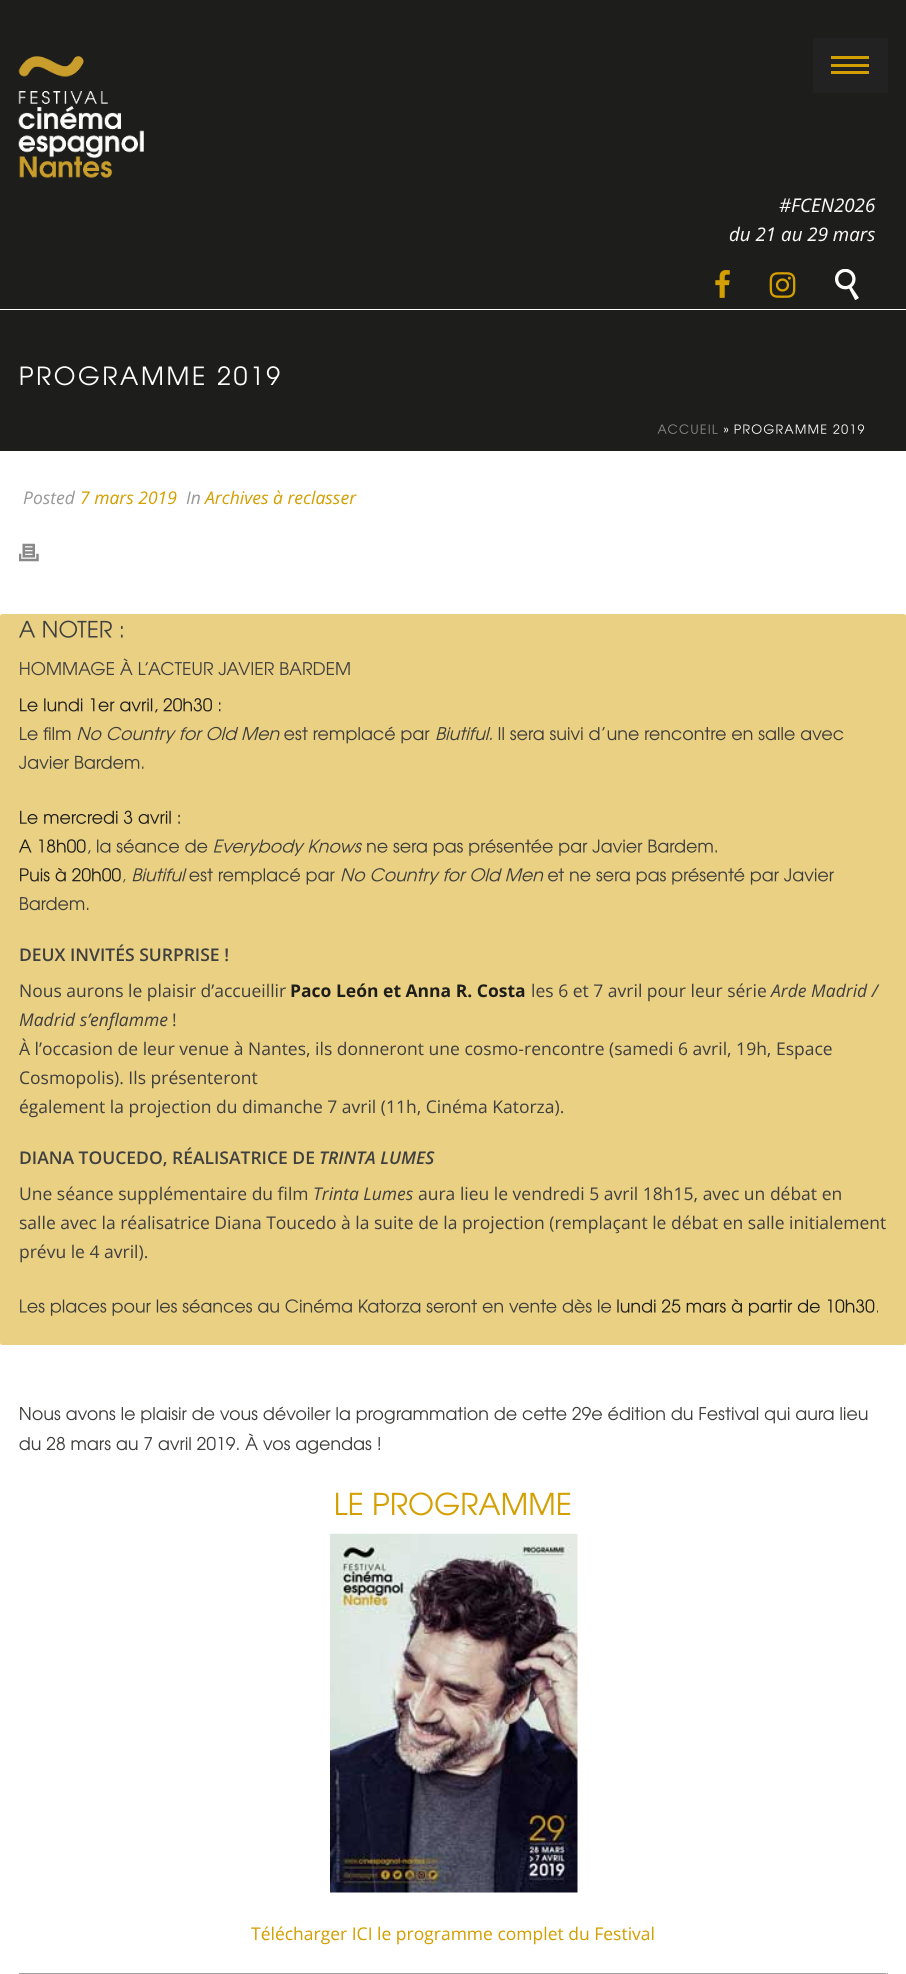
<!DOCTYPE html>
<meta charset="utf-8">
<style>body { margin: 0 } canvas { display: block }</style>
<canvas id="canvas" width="906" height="1974"></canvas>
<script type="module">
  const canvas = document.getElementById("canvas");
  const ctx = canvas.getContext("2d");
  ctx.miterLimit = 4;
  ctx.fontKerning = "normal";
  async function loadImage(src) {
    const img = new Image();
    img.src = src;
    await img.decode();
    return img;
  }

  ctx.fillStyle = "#ffffff";
  ctx.fillRect(0, 0, 906, 1974);
  ctx.fillStyle = "#1d1d1b";
  ctx.fillRect(0, 0, 906, 309);
  ctx.drawImage(await loadImage("img1.png"), 18, 56, 126, 122);
  ctx.fillStyle = "#222222";
  ctx.fillRect(813, 38, 75, 55);
  ctx.fillStyle = "#d49f00";
  ctx.fillRect(831, 64, 38, 3);
  ctx.fillRect(831, 56, 38, 3);
  ctx.fillRect(831, 71, 38, 3);
  ctx.font = "italic 18.75px Open Sans";
  ctx.fillStyle = "#fbf9f9";
  ctx.fillText("#FCEN2026", 779, 212);
  ctx.fillText("du 21 au 29 mars", 729, 241);
  ctx.drawImage(await loadImage("img2.png"), 715, 270, 15, 28);
  ctx.drawImage(await loadImage("img3.png"), 769, 272, 27, 26);
  ctx.drawImage(await loadImage("img4.png"), 835, 269, 24, 31);
  ctx.fillStyle = "#1d1d1b";
  ctx.fillRect(0, 310, 906, 141);
  ctx.drawImage(await loadImage("img5.png"), 20, 366, 260, 20);
  ctx.drawImage(await loadImage("img6.png"), 657, 424, 61, 10);
  ctx.drawImage(await loadImage("img7.png"), 724, 427, 5, 6);
  ctx.drawImage(await loadImage("img8.png"), 734, 424, 131, 10);
  ctx.font = "italic 17.5px Open Sans";
  ctx.fillStyle = "#999999";
  ctx.fillText("Posted", 23, 504);
  ctx.fillStyle = "#d49f00";
  ctx.fillText("7 mars 2019", 80, 504);
  ctx.fillStyle = "#999999";
  ctx.fillText("In", 186, 504);
  ctx.fillStyle = "#d49f00";
  ctx.fillText("Archives à reclasser", 205, 504);
  ctx.drawImage(await loadImage("img9.png"), 19, 543, 20, 19);
  ctx.fillStyle = "#ead083";
  ctx.beginPath();
  ctx.roundRect(0, 614, 906, 731, 2.5);
  ctx.fill();
  ctx.drawImage(await loadImage("img10.png"), 19, 620, 104, 18);
  ctx.drawImage(await loadImage("img11.png"), 20, 658, 330, 18);
  ctx.drawImage(await loadImage("img12.png"), 20, 698, 201, 15);
  ctx.drawImage(await loadImage("img13.png"), 20, 727, 51, 14);
  ctx.drawImage(await loadImage("img14.png"), 77, 726, 203, 18);
  ctx.drawImage(await loadImage("img15.png"), 284, 726, 146, 18);
  ctx.drawImage(await loadImage("img16.png"), 436, 727, 56, 14);
  ctx.drawImage(await loadImage("img17.png"), 498, 727, 346, 14);
  ctx.drawImage(await loadImage("img18.png"), 19, 755, 125, 14);
  ctx.drawImage(await loadImage("img19.png"), 20, 810, 160, 14);
  ctx.drawImage(await loadImage("img20.png"), 19, 839, 67, 14);
  ctx.drawImage(await loadImage("img21.png"), 87, 839, 121, 15);
  ctx.drawImage(await loadImage("img22.png"), 213, 839, 149, 17);
  ctx.drawImage(await loadImage("img23.png"), 367, 839, 350, 17);
  ctx.drawImage(await loadImage("img24.png"), 20, 867, 101, 15);
  ctx.fillStyle = "#3d3d3b";
  ctx.beginPath();
  ctx.moveTo(125.5, 879);
  ctx.lineTo(124.5, 879);
  ctx.lineTo(123, 882.5);
  ctx.lineTo(124, 882.5);
  ctx.closePath();
  ctx.fill();
  ctx.drawImage(await loadImage("img25.png"), 132, 868, 55, 14);
  ctx.drawImage(await loadImage("img26.png"), 189, 867, 146, 18);
  ctx.drawImage(await loadImage("img27.png"), 341, 868, 203, 17);
  ctx.drawImage(await loadImage("img28.png"), 548, 867, 286, 18);
  ctx.drawImage(await loadImage("img29.png"), 20, 897, 69, 14);
  ctx.font = "600 17.5px Open Sans";
  ctx.fillStyle = "#404040";
  ctx.fillText("DEUX INVITÉS SURPRISE !", 19, 961);
  ctx.font = "17.5px Open Sans";
  ctx.fillText("Nous aurons le plaisir d’accueillir", 19, 997);
  ctx.font = "bold 17.5px Open Sans";
  ctx.fillStyle = "#1d1d1b";
  ctx.fillText("Paco León et Anna R. Costa", 290, 997);
  ctx.font = "17.5px Open Sans";
  ctx.fillStyle = "#404040";
  ctx.fillText("les 6 et 7 avril pour leur série", 531, 997);
  ctx.font = "italic 17.5px Open Sans";
  ctx.fillText("Arde Madrid /", 771, 997);
  ctx.fillText("Madrid s’enflamme", 19, 1026);
  ctx.font = "17.5px Open Sans";
  ctx.fillText("!", 172, 1026);
  ctx.fillText("À l’occasion de leur venue à Nantes, ils donneront une cosmo-rencontre (samedi 6 avril, 19h, Espace", 19, 1055);
  ctx.fillText("Cosmopolis). Ils présenteront", 19, 1084);
  ctx.fillText("également la projection du dimanche 7 avril (11h, Cinéma Katorza).", 19, 1113);
  ctx.font = "600 17.5px Open Sans";
  ctx.fillText("DIANA TOUCEDO, RÉALISATRICE DE", 19, 1164);
  ctx.font = "italic 600 17.5px Open Sans";
  ctx.fillText("TRINTA LUMES", 319, 1164);
  ctx.font = "17.5px Open Sans";
  ctx.fillText("Une séance supplémentaire du film", 19, 1200);
  ctx.font = "italic 17.5px Open Sans";
  ctx.fillText("Trinta Lumes", 313, 1200);
  ctx.font = "17.5px Open Sans";
  ctx.fillText("aura lieu le vendredi 5 avril 18h15, avec un débat en", 418, 1200);
  ctx.fillText("salle avec la réalisatrice Diana Toucedo à la suite de la projection (remplaçant le débat en salle initialement", 19, 1229);
  ctx.fillText("prévu le 4 avril).", 19, 1258);
  ctx.drawImage(await loadImage("img30.png"), 20, 1299, 592, 17);
  ctx.drawImage(await loadImage("img31.png"), 617, 1299, 258, 17);
  ctx.fillStyle = "#3d3d3b";
  ctx.beginPath();
  ctx.moveTo(878, 1312.5);
  ctx.lineTo(878, 1310.5);
  ctx.lineTo(877, 1310.5);
  ctx.lineTo(877, 1312.5);
  ctx.closePath();
  ctx.fill();
  ctx.drawImage(await loadImage("img32.png"), 20, 1406, 848, 18);
  ctx.drawImage(await loadImage("img33.png"), 19, 1433, 361, 21);
  ctx.drawImage(await loadImage("img34.png"), 336, 1492, 235, 24);
  ctx.drawImage(await loadImage("img35.png"), 330, 1533, 248, 360);
  ctx.fillStyle = "#d49f00";
  ctx.fillText("Télécharger ICI le programme complet du Festival", 251, 1940);
  ctx.fillStyle = "#9f9f9f";
  ctx.fillRect(19, 1973, 869, 1);
  ctx.fillStyle = "#eeeeee";
  ctx.fillRect(886, 1973, 1, 1);
</script>
